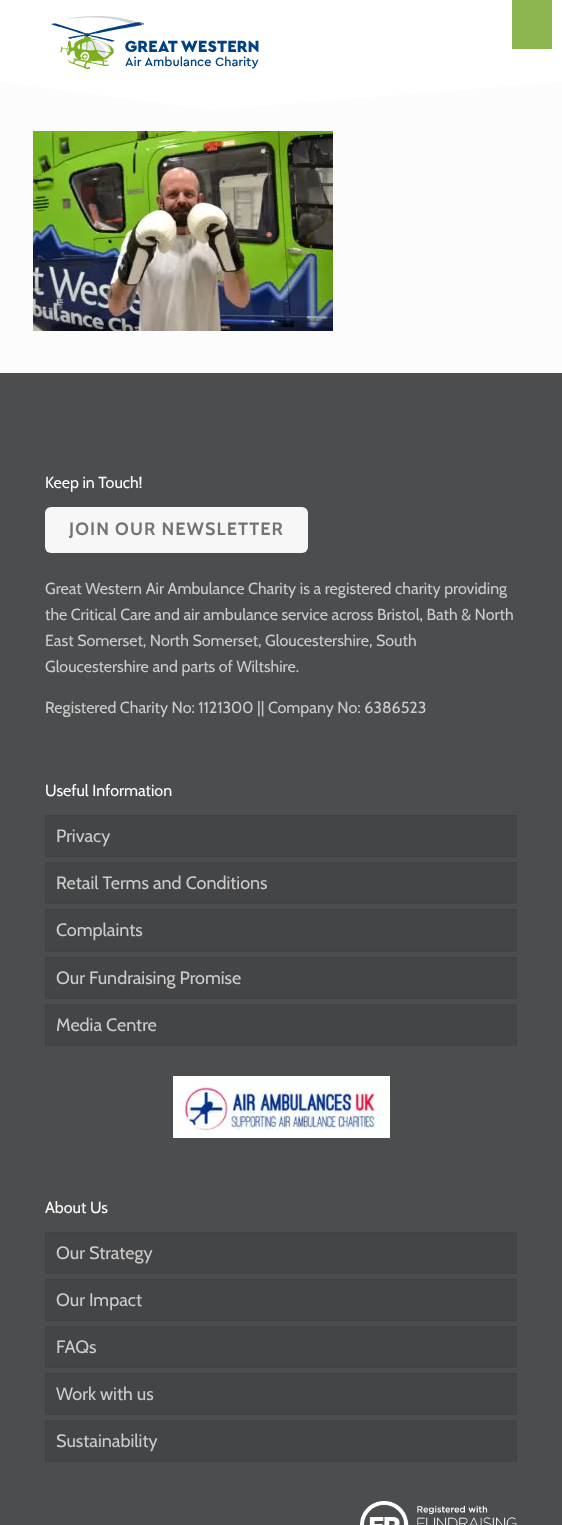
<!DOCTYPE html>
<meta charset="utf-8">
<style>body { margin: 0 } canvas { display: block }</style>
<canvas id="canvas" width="562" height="1525"></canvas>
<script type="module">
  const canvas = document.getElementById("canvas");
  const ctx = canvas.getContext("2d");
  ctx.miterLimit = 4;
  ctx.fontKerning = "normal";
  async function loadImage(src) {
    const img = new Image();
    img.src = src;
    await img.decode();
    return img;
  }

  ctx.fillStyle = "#fcfcfc";
  ctx.fillRect(0, 0, 562, 1525);
  ctx.fillStyle = "#ffffff";
  ctx.fillRect(0, 0, 562, 63);
  ctx.beginPath();
  ctx.moveTo(562, 82);
  ctx.lineTo(212, 110);
  ctx.lineTo(0, 82);
  ctx.lineTo(0, 35);
  ctx.lineTo(210, 63);
  ctx.lineTo(562, 35);
  ctx.fill();
  ctx.drawImage(await loadImage("img1.png"), 51, 16, 208, 53);
  ctx.fillStyle = "#8db651";
  ctx.fillRect(512, 0, 40, 49);
  ctx.drawImage(await loadImage("img2.png"), 33, 131, 300, 200);
  ctx.fillStyle = "#4c4d4f";
  ctx.fillRect(0, 373, 562, 1152);
  ctx.font = "16px Cabin";
  ctx.fillStyle = "#ffffff";
  ctx.fillText("Keep in Touch!", 45, 488);
  ctx.fillStyle = "#f7f7f7";
  ctx.beginPath();
  ctx.roundRect(45, 507, 263, 46, 6);
  ctx.fill();
  ctx.letterSpacing = "1.1px";
  ctx.font = "bold 18px Cabin";
  ctx.fillStyle = "#747474";
  ctx.fillText("JOIN OUR NEWSLETTER", 69, 535);
  ctx.letterSpacing = "0px";
  ctx.font = "16px Cabin";
  ctx.fillStyle = "#cccccc";
  ctx.fillText("Great Western Air Ambulance Charity is a registered charity providing", 45, 594);
  ctx.fillText("the Critical Care and air ambulance service across Bristol, Bath & North", 45, 620);
  ctx.fillText("East Somerset, North Somerset, Gloucestershire, South", 45, 646);
  ctx.fillText("Gloucestershire and parts of Wiltshire.", 45, 672);
  ctx.fillText("Registered Charity No: 1121300 || Company No: 6386523", 45, 713);
  ctx.fillStyle = "#ffffff";
  ctx.fillText("Useful Information", 45, 796);
  ctx.fillStyle = "#444547";
  ctx.beginPath();
  ctx.rect(45.5, 815.5, 471, 41);
  ctx.fill();
  ctx.strokeStyle = "#414244";
  ctx.stroke();
  ctx.font = "18px Cabin";
  ctx.fillStyle = "#cccccc";
  ctx.fillText("Privacy", 56, 842);
  ctx.fillStyle = "#444547";
  ctx.beginPath();
  ctx.rect(45.5, 862.5, 471, 41);
  ctx.fill();
  ctx.stroke();
  ctx.fillStyle = "#cccccc";
  ctx.fillText("Retail Terms and Conditions", 56, 889);
  ctx.fillStyle = "#444547";
  ctx.beginPath();
  ctx.rect(45.5, 909.5, 471, 42);
  ctx.fill();
  ctx.stroke();
  ctx.fillStyle = "#cccccc";
  ctx.fillText("Complaints", 56, 936);
  ctx.fillStyle = "#444547";
  ctx.beginPath();
  ctx.rect(45.5, 957.5, 471, 41);
  ctx.fill();
  ctx.stroke();
  ctx.fillStyle = "#cccccc";
  ctx.fillText("Our Fundraising Promise", 56, 984);
  ctx.fillStyle = "#444547";
  ctx.beginPath();
  ctx.rect(45.5, 1004.5, 471, 41);
  ctx.fill();
  ctx.stroke();
  ctx.fillStyle = "#cccccc";
  ctx.fillText("Media Centre", 56, 1031);
  ctx.drawImage(await loadImage("img3.png"), 173, 1076, 217, 62);
  ctx.font = "16px Cabin";
  ctx.fillStyle = "#ffffff";
  ctx.fillText("About Us", 45, 1213);
  ctx.fillStyle = "#444547";
  ctx.beginPath();
  ctx.rect(45.5, 1232.5, 471, 41);
  ctx.fill();
  ctx.stroke();
  ctx.font = "18px Cabin";
  ctx.fillStyle = "#cccccc";
  ctx.fillText("Our Strategy", 56, 1259);
  ctx.fillStyle = "#444547";
  ctx.beginPath();
  ctx.rect(45.5, 1279.5, 471, 41);
  ctx.fill();
  ctx.stroke();
  ctx.fillStyle = "#cccccc";
  ctx.fillText("Our Impact", 56, 1306);
  ctx.fillStyle = "#444547";
  ctx.beginPath();
  ctx.rect(45.5, 1326.5, 471, 41);
  ctx.fill();
  ctx.stroke();
  ctx.fillStyle = "#cccccc";
  ctx.fillText("FAQs", 56, 1353);
  ctx.fillStyle = "#444547";
  ctx.beginPath();
  ctx.rect(45.5, 1373.5, 471, 41);
  ctx.fill();
  ctx.stroke();
  ctx.fillStyle = "#cccccc";
  ctx.fillText("Work with us", 56, 1400);
  ctx.fillStyle = "#444547";
  ctx.beginPath();
  ctx.rect(45.5, 1420.5, 471, 41);
  ctx.fill();
  ctx.stroke();
  ctx.fillStyle = "#cccccc";
  ctx.fillText("Sustainability", 56, 1447);
  ctx.drawImage(await loadImage("img4.png"), 360, 1501, 157, 24);
</script>
